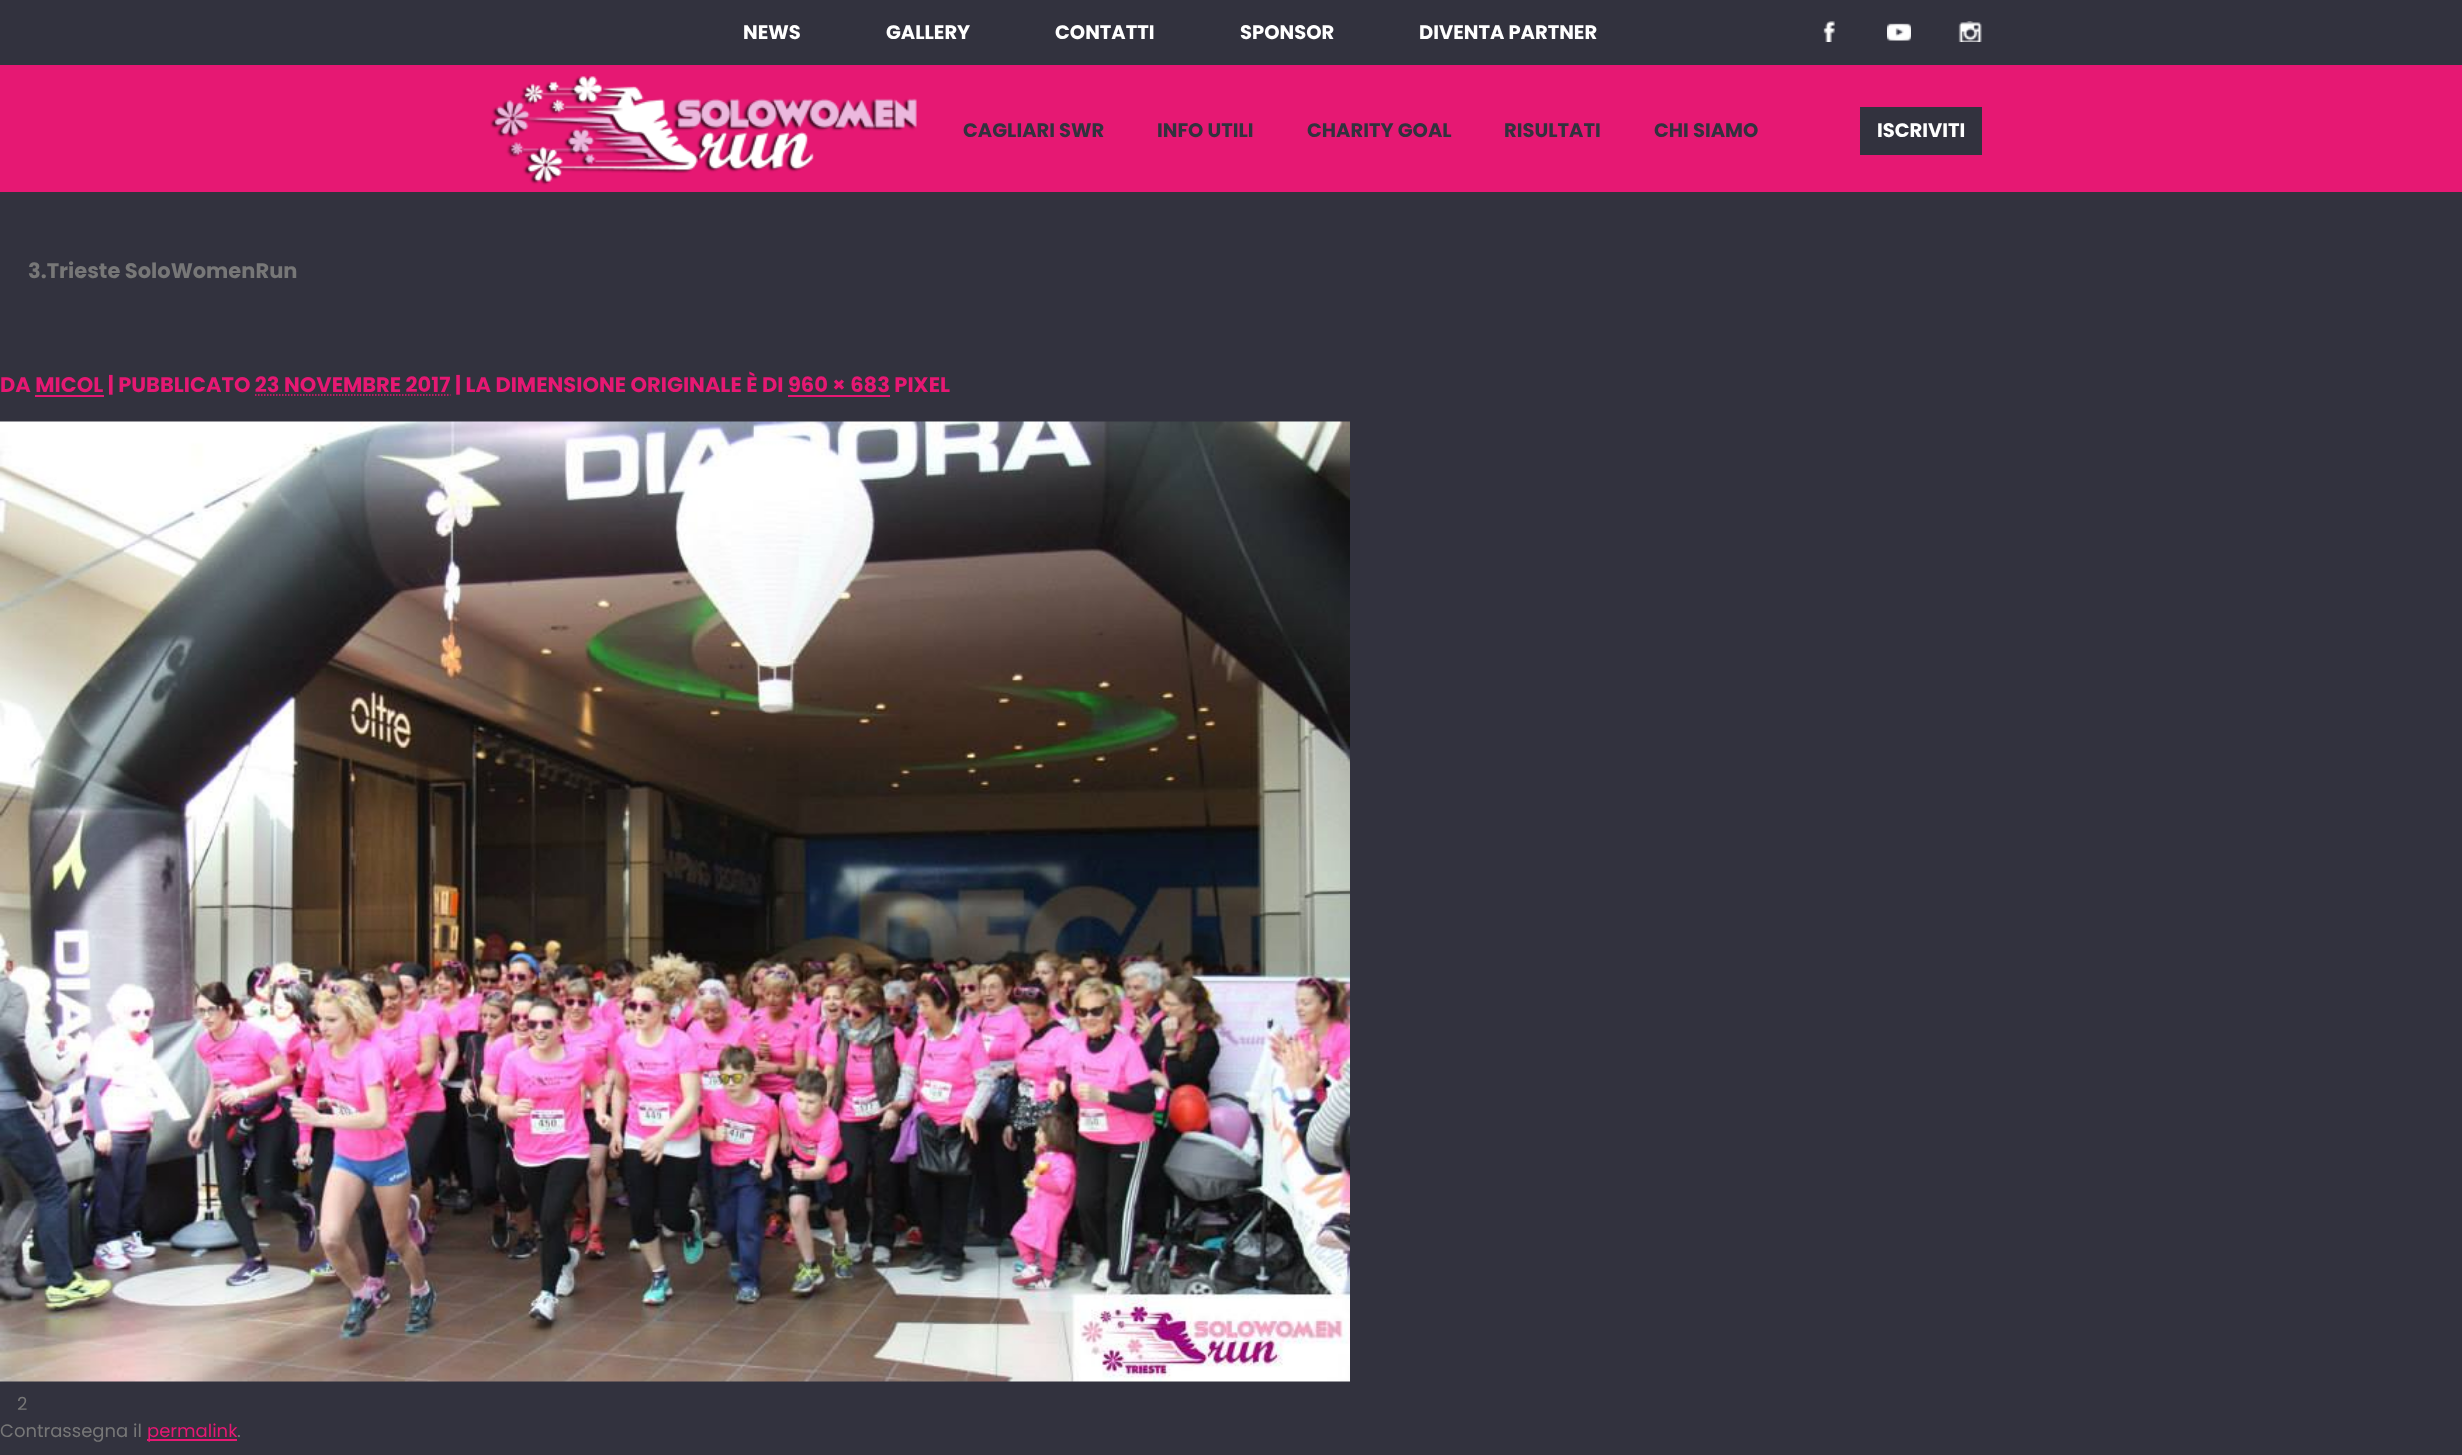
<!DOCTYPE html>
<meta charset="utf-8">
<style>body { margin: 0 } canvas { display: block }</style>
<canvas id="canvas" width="2462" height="1455"></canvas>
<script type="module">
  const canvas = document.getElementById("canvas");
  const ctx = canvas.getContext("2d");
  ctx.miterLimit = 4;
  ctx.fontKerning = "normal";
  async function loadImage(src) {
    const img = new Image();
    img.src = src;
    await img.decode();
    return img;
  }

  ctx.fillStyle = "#32323e";
  ctx.fillRect(0, 0, 2462, 1455);
  ctx.font = "bold 19.5px Poppins";
  ctx.fillStyle = "#ffffff";
  ctx.fillText("NEWS", 743, 39);
  ctx.fillText("GALLERY", 886, 39);
  ctx.fillText("CONTATTI", 1055, 39);
  ctx.fillText("SPONSOR", 1240, 39);
  ctx.fillText("DIVENTA PARTNER", 1419, 39);
  ctx.drawImage(await loadImage("img1.png"), 1823, 21, 12, 21);
  ctx.drawImage(await loadImage("img2.png"), 1887, 23, 24, 18);
  ctx.drawImage(await loadImage("img3.png"), 1958, 21, 24, 21);
  ctx.fillStyle = "#e61873";
  ctx.fillRect(0, 65, 2462, 127);
  ctx.drawImage(await loadImage("img4.png"), 490, 76, 427, 109);
  ctx.fillStyle = "#32323e";
  ctx.fillText("CAGLIARI SWR", 963, 137);
  ctx.fillText("INFO UTILI", 1157, 137);
  ctx.fillText("CHARITY GOAL", 1307, 137);
  ctx.fillText("RISULTATI", 1504, 137);
  ctx.fillText("CHI SIAMO", 1654, 137);
  ctx.fillRect(1860, 107, 122, 48);
  ctx.fillStyle = "#ffffff";
  ctx.fillText("ISCRIVITI", 1877, 137);
  ctx.font = "bold 21px Poppins";
  ctx.fillStyle = "#777777";
  ctx.fillText("3.Trieste SoloWomenRun", 28, 278);
  ctx.fillStyle = "#e61873";
  ctx.fillText("DA MICOL | PUBBLICATO 23 NOVEMBRE 2017 | LA DIMENSIONE ORIGINALE È DI 960 × 683 PIXEL", 0, 392);
  ctx.fillRect(35, 395, 69, 2);
  ctx.beginPath();
  ctx.moveTo(255, 395);
  ctx.lineTo(450.5, 395);
  ctx.strokeStyle = "#e61873";
  ctx.lineWidth = 1.5;
  ctx.setLineDash([1.5, 1.5]);
  ctx.stroke();
  ctx.fillRect(788, 395, 102, 2);
  ctx.drawImage(await loadImage("img5.png"), 0, 421, 1350, 961);
  ctx.font = "18px Poppins";
  ctx.fillStyle = "#777777";
  ctx.fillText("2", 17, 1410);
  ctx.fillText("Contrassegna il", 0, 1437);
  ctx.fillStyle = "#e61873";
  ctx.fillRect(147, 1439, 90, 2);
  ctx.fillText("permalink", 147, 1437);
  ctx.fillStyle = "#777777";
  ctx.fillText(".", 237, 1437);
</script>
